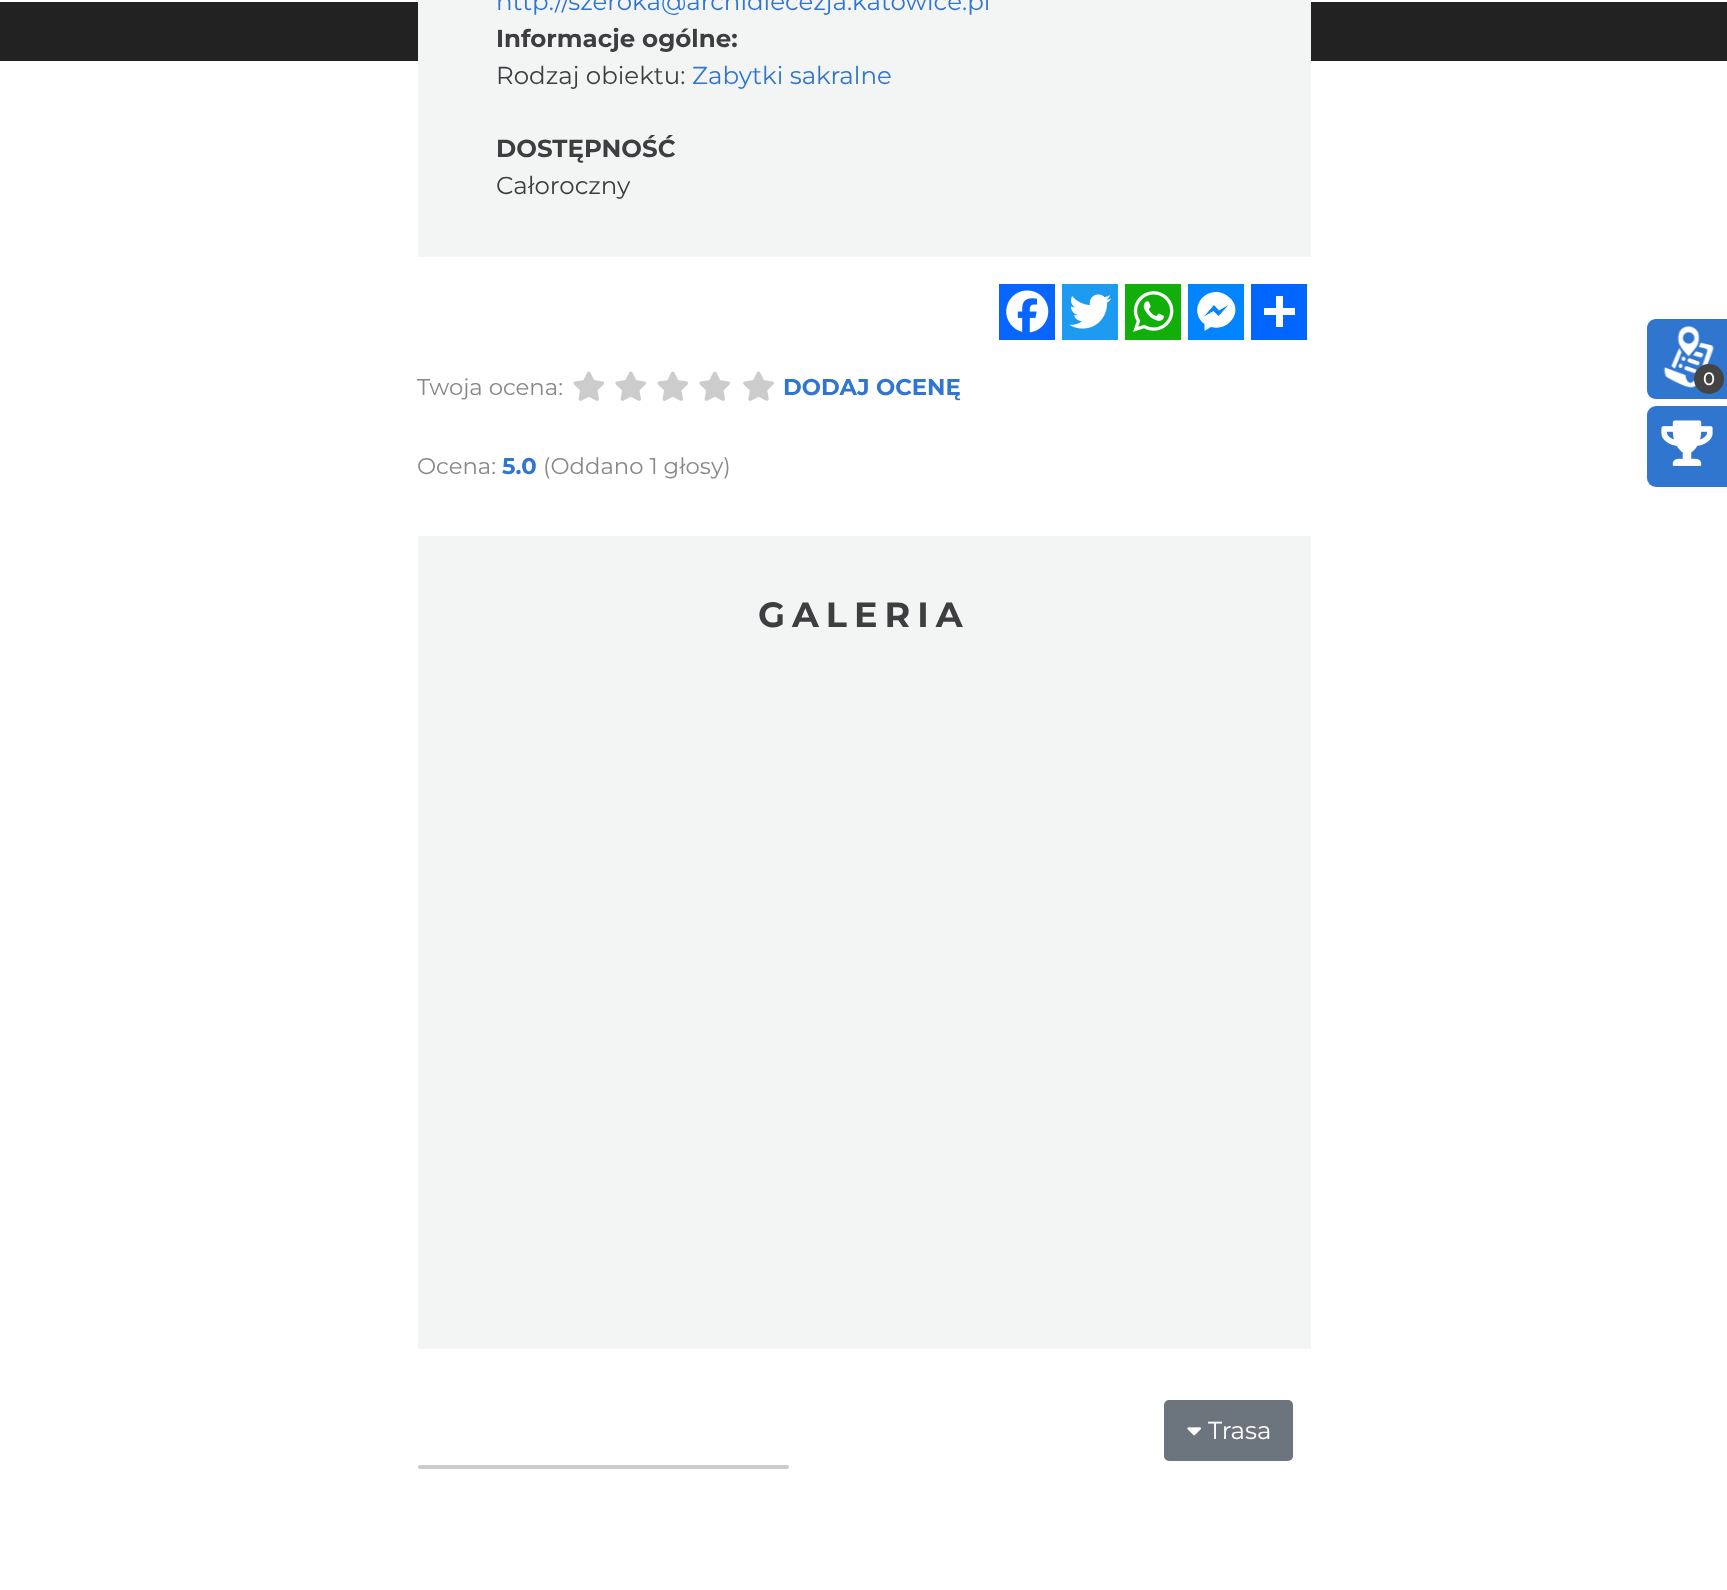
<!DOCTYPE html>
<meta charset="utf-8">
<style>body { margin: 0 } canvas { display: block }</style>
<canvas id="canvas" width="1727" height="1590"></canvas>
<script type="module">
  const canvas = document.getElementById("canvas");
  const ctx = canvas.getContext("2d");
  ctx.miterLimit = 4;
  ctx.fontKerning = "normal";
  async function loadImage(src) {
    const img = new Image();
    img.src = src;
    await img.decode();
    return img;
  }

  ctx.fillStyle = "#ffffff";
  ctx.fillRect(0, 0, 1727, 1590);
  ctx.fillStyle = "#222222";
  ctx.fillRect(0, 2, 1727, 59);
  ctx.fillStyle = "#f3f5f5";
  ctx.fillRect(418, 0, 893, 257);
  ctx.font = "24.5px Montserrat";
  ctx.fillStyle = "#3075ce";
  ctx.fillText("http://szeroka@archidiecezja.katowice.pl", 496, 10);
  ctx.font = "bold 24.5px Montserrat";
  ctx.fillStyle = "#3e3d40";
  ctx.fillText("Informacje ogólne:", 496, 47);
  ctx.font = "24.5px Montserrat";
  ctx.fillText("Rodzaj obiektu:", 496, 84);
  ctx.fillStyle = "#3075ce";
  ctx.fillText("Zabytki sakralne", 692, 84);
  ctx.font = "bold 24.5px Montserrat";
  ctx.fillStyle = "#3e3d40";
  ctx.fillText("DOSTĘPNOŚĆ", 496, 157);
  ctx.font = "24.5px Montserrat";
  ctx.fillText("Całoroczny", 496, 194);
  ctx.fillStyle = "#0866ff";
  ctx.fillRect(999, 284, 56, 56);
  ctx.drawImage(await loadImage("img1.png"), 1006, 290, 43, 43);
  ctx.fillStyle = "#1d9bf0";
  ctx.fillRect(1062, 284, 56, 56);
  ctx.drawImage(await loadImage("img2.png"), 1069, 294, 43, 35);
  ctx.fillStyle = "#12af0a";
  ctx.fillRect(1125, 284, 56, 56);
  ctx.drawImage(await loadImage("img3.png"), 1133, 291, 41, 41);
  ctx.fillStyle = "#0084ff";
  ctx.fillRect(1188, 284, 56, 56);
  ctx.fillStyle = "#ffffff";
  ctx.beginPath();
  ctx.moveTo(1216, 292);
  ctx.bezierCurveTo(1199, 292, 1190, 313.5, 1204.5, 324);
  ctx.lineTo(1204.5, 331);
  ctx.lineTo(1211, 327);
  ctx.bezierCurveTo(1228.5, 332, 1244.5, 311, 1229.5, 297.5);
  ctx.bezierCurveTo(1226, 294, 1221, 292, 1216, 292);
  ctx.moveTo(1218.5, 316);
  ctx.lineTo(1213.5, 311);
  ctx.lineTo(1204, 316.5);
  ctx.lineTo(1214, 305);
  ctx.lineTo(1219, 310.5);
  ctx.lineTo(1228.5, 305);
  ctx.closePath();
  ctx.fill();
  ctx.fillStyle = "#0166ff";
  ctx.fillRect(1251, 284, 56, 56);
  ctx.fillStyle = "#ffffff";
  ctx.fillRect(1276, 296, 7, 31);
  ctx.fillRect(1264, 308, 31, 7);
  ctx.font = "22.75px Montserrat";
  ctx.fillStyle = "#888888";
  ctx.fillText("Twoja ocena:", 417, 395);
  ctx.drawImage(await loadImage("img4.png"), 573, 371, 31, 30);
  ctx.drawImage(await loadImage("img4.png"), 615, 371, 31, 30);
  ctx.drawImage(await loadImage("img4.png"), 657, 371, 31, 30);
  ctx.drawImage(await loadImage("img4.png"), 699, 371, 31, 30);
  ctx.drawImage(await loadImage("img5.png"), 743, 371, 31, 30);
  ctx.font = "bold 22.75px Montserrat";
  ctx.fillStyle = "#3075ce";
  ctx.fillText("DODAJ OCENĘ", 783, 395);
  ctx.font = "22.75px Montserrat";
  ctx.fillStyle = "#888888";
  ctx.fillText("Ocena:", 417, 474);
  ctx.font = "bold 22.75px Montserrat";
  ctx.fillStyle = "#3075ce";
  ctx.fillText("5.0", 502, 474);
  ctx.font = "22.75px Montserrat";
  ctx.fillStyle = "#888888";
  ctx.fillText("(Oddano 1 głosy)", 543, 474);
  ctx.fillStyle = "#f3f5f5";
  ctx.fillRect(418, 536, 893, 813);
  ctx.letterSpacing = "7px";
  ctx.font = "bold 35px Montserrat";
  ctx.fillStyle = "#3e3d40";
  ctx.fillText("GALERIA", 758, 627);
  ctx.fillStyle = "#6c757d";
  ctx.beginPath();
  ctx.roundRect(1165, 1401, 127, 59, 4);
  ctx.fill();
  ctx.strokeStyle = "#6c757d";
  ctx.lineWidth = 2;
  ctx.stroke();
  ctx.drawImage(await loadImage("img6.png"), 1187, 1427, 14, 9);
  ctx.letterSpacing = "0px";
  ctx.font = "24.5px Montserrat";
  ctx.fillStyle = "#ffffff";
  ctx.fillText("Trasa", 1208, 1439);
  ctx.fillStyle = "#cccccc";
  ctx.beginPath();
  ctx.roundRect(418, 1465, 371, 4, 2);
  ctx.fill();
  ctx.fillStyle = "#3075ce";
  ctx.beginPath();
  ctx.moveTo(1656, 319);
  ctx.lineTo(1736, 319);
  ctx.lineTo(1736, 399);
  ctx.lineTo(1656, 399);
  ctx.bezierCurveTo(1651, 399, 1647, 395, 1647, 390);
  ctx.lineTo(1647, 328);
  ctx.bezierCurveTo(1647, 323, 1651, 319, 1656, 319);
  ctx.closePath();
  ctx.fill();
  ctx.drawImage(await loadImage("img7.png"), 1663, 326, 51, 62);
  ctx.fillStyle = "#444444";
  ctx.beginPath();
  ctx.arc(1709, 379, 15, 0, Math.PI * 2);
  ctx.fill();
  ctx.font = "500 18px Montserrat";
  ctx.fillStyle = "#ffffff";
  ctx.fillText("0", 1703, 385);
  ctx.fillStyle = "#3075ce";
  ctx.beginPath();
  ctx.roundRect(1647, 406, 80, 81, [9, 0, 0, 9]);
  ctx.fill();
  ctx.drawImage(await loadImage("img8.png"), 1661, 420, 52, 46);
</script>
